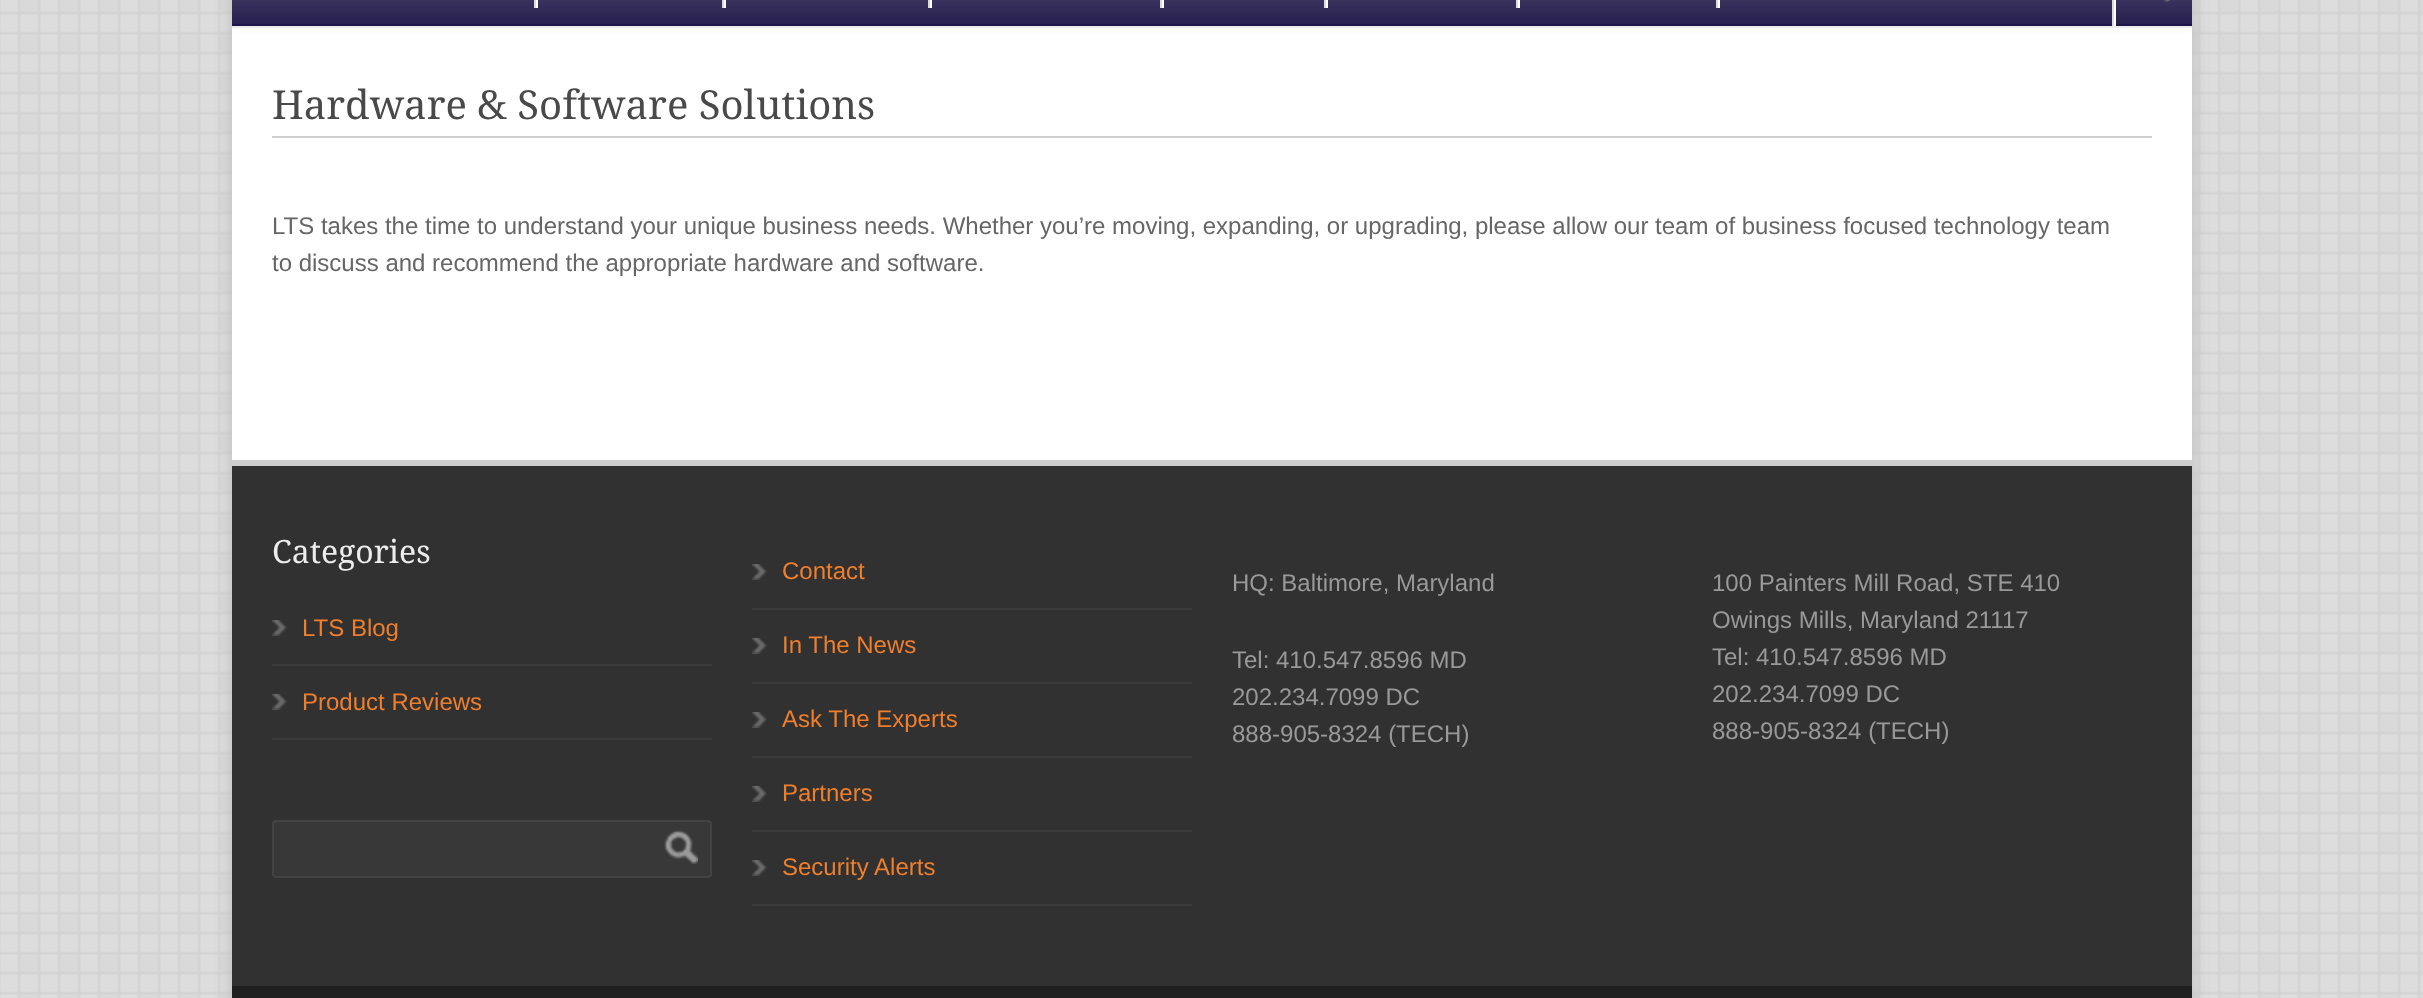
<!DOCTYPE html>
<meta charset="utf-8">
<style>body { margin: 0 } canvas { display: block }</style>
<canvas id="canvas" width="2423" height="998"></canvas>
<script type="module">
  const canvas = document.getElementById("canvas");
  const ctx = canvas.getContext("2d");
  ctx.miterLimit = 4;
  ctx.fontKerning = "normal";
  async function loadImage(src) {
    const img = new Image();
    img.src = src;
    await img.decode();
    return img;
  }

  ctx.fillStyle = "#dddddd";
  ctx.fillRect(0, 0, 2423, 998);
  ctx.drawImage(await loadImage("img1.png"), 0, 0, 2423, 998);
  ctx.fillStyle = "#bbbbbb";
  ctx.filter = "blur(8px)";
  ctx.beginPath();
  ctx.rect(232, -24, 1960, 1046);
  ctx.fill();
  ctx.filter = "none";
  ctx.fillStyle = "#ffffff";
  ctx.fillRect(232, 28, 1960, 432);
  ctx.save();
  ctx.beginPath();
  ctx.rect(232, 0, 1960, 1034);
  ctx.clip();
  ctx.fillStyle = "#f5f5f5";
  ctx.filter = "blur(5px)";
  ctx.beginPath();
  ctx.rect(234, -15, 1956, 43);
  ctx.fill();
  ctx.filter = "none";
  ctx.restore();
  ctx.fillStyle = "#1d1547";
  ctx.fillRect(232, 0, 1960, 26);
  ctx.drawImage(await loadImage("img2.png"), 232, 0, 1960, 24);
  ctx.fillStyle = "#ececec";
  ctx.fillRect(232, 26, 1960, 2);
  ctx.fillStyle = "#dbdbdb";
  ctx.fillRect(534, 0, 2, 8);
  ctx.fillRect(722, 0, 2, 8);
  ctx.fillStyle = "#ffffff";
  ctx.fillRect(536, 0, 2, 8);
  ctx.fillStyle = "#dbdbdb";
  ctx.fillRect(928, 0, 2, 8);
  ctx.fillStyle = "#ffffff";
  ctx.fillRect(724, 0, 2, 8);
  ctx.fillStyle = "#dbdbdb";
  ctx.fillRect(1160, 0, 2, 8);
  ctx.fillStyle = "#ffffff";
  ctx.fillRect(930, 0, 2, 8);
  ctx.fillStyle = "#dbdbdb";
  ctx.fillRect(1324, 0, 2, 8);
  ctx.fillStyle = "#ffffff";
  ctx.fillRect(1162, 0, 2, 8);
  ctx.fillStyle = "#dbdbdb";
  ctx.fillRect(1516, 0, 2, 8);
  ctx.fillStyle = "#ffffff";
  ctx.fillRect(1326, 0, 2, 8);
  ctx.fillStyle = "#dbdbdb";
  ctx.fillRect(1716, 0, 2, 8);
  ctx.fillStyle = "#ffffff";
  ctx.fillRect(1518, 0, 2, 8);
  ctx.fillRect(1718, 0, 2, 8);
  ctx.fillStyle = "#dbdbdb";
  ctx.fillRect(2112, 0, 2, 26);
  ctx.fillStyle = "#ffffff";
  ctx.fillRect(2114, 0, 2, 26);
  ctx.drawImage(await loadImage("img3.png"), 2163, 0, 7, 2);
  ctx.fillStyle = "#cfcfcf";
  ctx.fillRect(272, 136, 1880, 2);
  ctx.font = "40px Droid Serif";
  ctx.fillStyle = "#494949";
  ctx.fillText("Hardware & Software Solutions", 272, 119);
  ctx.font = "24px Liberation Sans";
  ctx.fillStyle = "#666666";
  ctx.fillText("LTS takes the time to understand your unique business needs. Whether you’re moving, expanding, or upgrading, please allow our team of business focused technology team", 272, 234);
  ctx.fillText("to discuss and recommend the appropriate hardware and software.", 272, 271);
  ctx.fillStyle = "#313131";
  ctx.fillRect(232, 466, 1960, 520);
  ctx.fillStyle = "#cfcfcf";
  ctx.fillRect(232, 460, 1960, 6);
  ctx.font = "32px Droid Serif";
  ctx.fillStyle = "#ececec";
  ctx.fillText("Categories", 272, 563);
  ctx.drawImage(await loadImage("img4.png"), 272, 620, 15, 16);
  ctx.fillStyle = "#3b3b3b";
  ctx.fillRect(272, 664, 440, 2);
  ctx.font = "24px Liberation Sans";
  ctx.fillStyle = "#ef7f2c";
  ctx.fillText("LTS Blog", 302, 636);
  ctx.drawImage(await loadImage("img4.png"), 272, 694, 15, 16);
  ctx.fillStyle = "#3b3b3b";
  ctx.fillRect(272, 738, 440, 2);
  ctx.fillStyle = "#ef7f2c";
  ctx.fillText("Product Reviews", 302, 710);
  ctx.fillStyle = "#383838";
  ctx.beginPath();
  ctx.roundRect(273, 821, 438, 56, 3);
  ctx.fill();
  ctx.strokeStyle = "#434343";
  ctx.lineWidth = 2;
  ctx.stroke();
  ctx.drawImage(await loadImage("img5.png"), 664, 830, 34, 34);
  ctx.drawImage(await loadImage("img4.png"), 752, 564, 15, 16);
  ctx.fillStyle = "#3b3b3b";
  ctx.fillRect(752, 608, 440, 2);
  ctx.fillStyle = "#ef7f2c";
  ctx.fillText("Contact", 782, 579);
  ctx.drawImage(await loadImage("img4.png"), 752, 638, 15, 16);
  ctx.fillStyle = "#3b3b3b";
  ctx.fillRect(752, 682, 440, 2);
  ctx.fillStyle = "#ef7f2c";
  ctx.fillText("In The News", 782, 653);
  ctx.drawImage(await loadImage("img4.png"), 752, 712, 15, 16);
  ctx.fillStyle = "#3b3b3b";
  ctx.fillRect(752, 756, 440, 2);
  ctx.fillStyle = "#ef7f2c";
  ctx.fillText("Ask The Experts", 782, 727);
  ctx.drawImage(await loadImage("img4.png"), 752, 786, 15, 16);
  ctx.fillStyle = "#3b3b3b";
  ctx.fillRect(752, 830, 440, 2);
  ctx.fillStyle = "#ef7f2c";
  ctx.fillText("Partners", 782, 801);
  ctx.drawImage(await loadImage("img4.png"), 752, 860, 15, 16);
  ctx.fillStyle = "#3b3b3b";
  ctx.fillRect(752, 904, 440, 2);
  ctx.fillStyle = "#ef7f2c";
  ctx.fillText("Security Alerts", 782, 875);
  ctx.fillStyle = "#999999";
  ctx.fillText("HQ: Baltimore, Maryland", 1232, 591);
  ctx.fillText("Tel: 410.547.8596 MD", 1232, 668);
  ctx.fillText("202.234.7099 DC", 1232, 705);
  ctx.fillText("888-905-8324 (TECH)", 1232, 742);
  ctx.fillText("100 Painters Mill Road, STE 410", 1712, 591);
  ctx.fillText("Owings Mills, Maryland 21117", 1712, 628);
  ctx.fillText("Tel: 410.547.8596 MD", 1712, 665);
  ctx.fillText("202.234.7099 DC", 1712, 702);
  ctx.fillText("888-905-8324 (TECH)", 1712, 739);
  ctx.fillStyle = "#202020";
  ctx.fillRect(232, 986, 1960, 12);
</script>
